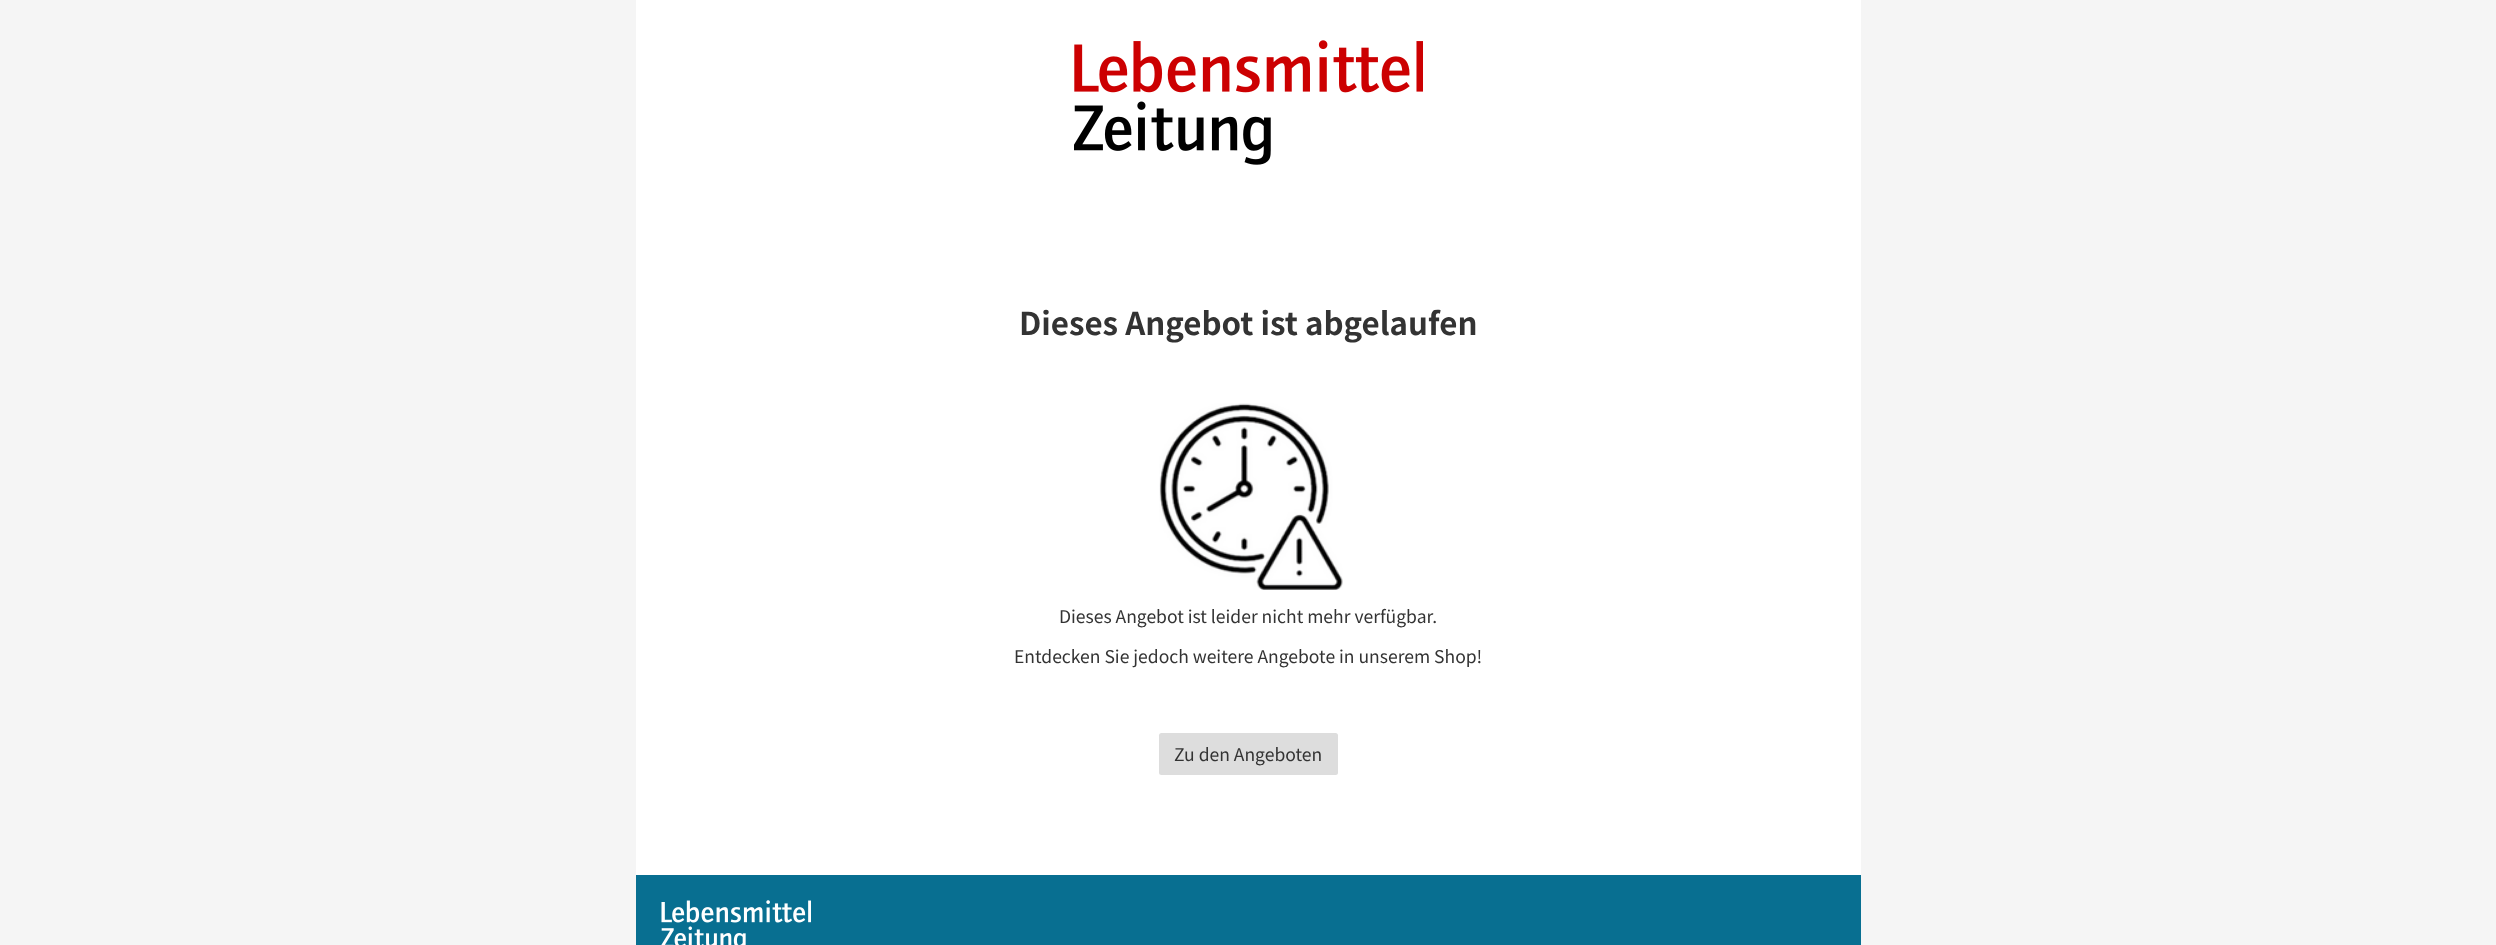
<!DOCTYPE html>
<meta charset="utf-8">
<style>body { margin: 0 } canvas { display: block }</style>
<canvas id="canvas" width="2496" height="945"></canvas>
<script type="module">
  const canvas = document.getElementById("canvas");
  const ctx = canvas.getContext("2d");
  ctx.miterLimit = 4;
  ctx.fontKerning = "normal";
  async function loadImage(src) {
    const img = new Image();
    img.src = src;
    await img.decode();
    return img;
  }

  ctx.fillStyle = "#f5f5f5";
  ctx.fillRect(0, 0, 2496, 945);
  ctx.fillStyle = "#ffffff";
  ctx.fillRect(636, 0, 1225, 875);
  ctx.drawImage(await loadImage("img1.png"), 1074, 40, 349, 125);
  ctx.font = "bold 31.25px Noto Sans JP";
  ctx.fillStyle = "#333333";
  ctx.fillText("Dieses Angebot ist abgelaufen", 1019, 335);
  ctx.drawImage(await loadImage("img2.png"), 1159, 403, 184, 187);
  ctx.font = "17.5px Noto Sans JP";
  ctx.fillText("Dieses Angebot ist leider nicht mehr verfügbar.", 1059, 623);
  ctx.fillText("Entdecken Sie jedoch weitere Angebote in unserem Shop!", 1014, 663);
  ctx.fillStyle = "#dddddd";
  ctx.beginPath();
  ctx.roundRect(1159, 733, 179, 42, 2.5);
  ctx.fill();
  ctx.fillStyle = "#333333";
  ctx.fillText("Zu den Angeboten", 1174, 761);
  ctx.fillStyle = "#086f91";
  ctx.fillRect(636, 875, 1225, 70);
  ctx.drawImage(await loadImage("img3.png"), 661, 900, 150, 45);
</script>
